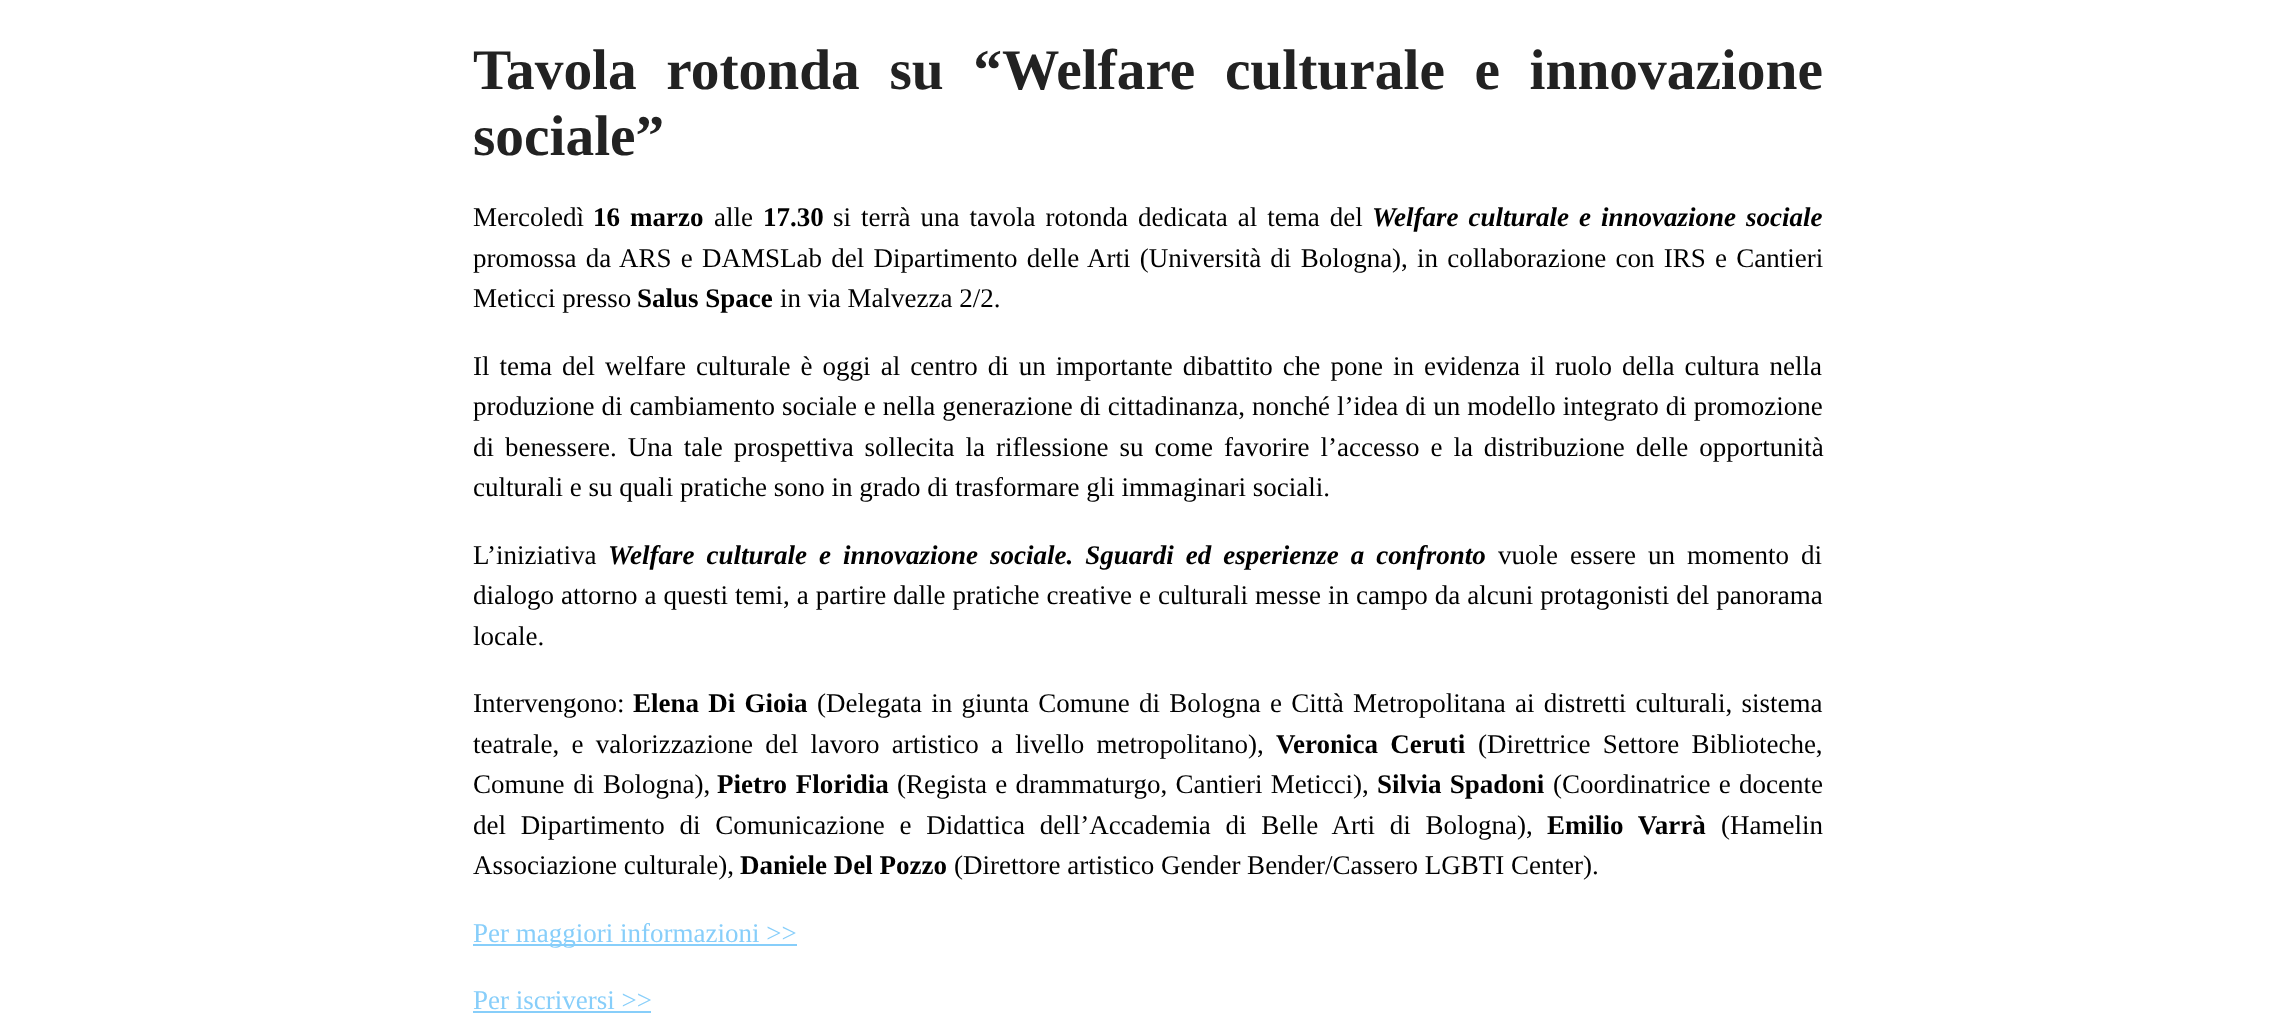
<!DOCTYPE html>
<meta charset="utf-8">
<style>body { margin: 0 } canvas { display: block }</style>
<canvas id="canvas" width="2294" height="1030"></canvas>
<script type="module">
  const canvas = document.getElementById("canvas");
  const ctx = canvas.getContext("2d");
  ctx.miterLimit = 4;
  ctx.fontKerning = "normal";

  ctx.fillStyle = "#ffffff";
  ctx.fillRect(0, 0, 2294, 1030);
  ctx.wordSpacing = "15.25px";
  ctx.font = "bold 57.4px Liberation Serif";
  ctx.fillStyle = "#222222";
  ctx.fillText("Tavola rotonda su “Welfare culturale e innovazione", 473, 89);
  ctx.wordSpacing = "0px";
  ctx.fillText("sociale”", 473, 155);
  ctx.font = "27px Liberation Serif";
  ctx.fillStyle = "#000000";
  ctx.fillText("Mercoledì", 473, 226);
  ctx.wordSpacing = "3.25px";
  ctx.font = "bold 27px Liberation Serif";
  ctx.fillText("16 marzo", 593, 226);
  ctx.wordSpacing = "0px";
  ctx.font = "27px Liberation Serif";
  ctx.fillText("alle", 714, 226);
  ctx.font = "bold 27px Liberation Serif";
  ctx.fillText("17.30", 763, 226);
  ctx.wordSpacing = "3.25px";
  ctx.font = "27px Liberation Serif";
  ctx.fillText("si terrà una tavola rotonda dedicata al tema del", 833, 226);
  ctx.font = "italic bold 27px Liberation Serif";
  ctx.fillText("Welfare culturale e innovazione sociale", 1372, 226);
  ctx.wordSpacing = "2.5px";
  ctx.font = "27px Liberation Serif";
  ctx.fillText("promossa da ARS e DAMSLab del Dipartimento delle Arti (Università di Bologna), in collaborazione con IRS e Cantieri", 473, 267);
  ctx.wordSpacing = "0px";
  ctx.fillText("Meticci presso", 473, 307);
  ctx.font = "bold 27px Liberation Serif";
  ctx.fillText("Salus Space", 637, 307);
  ctx.font = "27px Liberation Serif";
  ctx.fillText("in via Malvezza 2/2.", 780, 307);
  ctx.wordSpacing = "3.3px";
  ctx.fillText("Il tema del welfare culturale è oggi al centro di un importante dibattito che pone in evidenza il ruolo della cultura nella", 473, 375);
  ctx.wordSpacing = "0.25px";
  ctx.fillText("produzione di cambiamento sociale e nella generazione di cittadinanza, nonché l’idea di un modello integrato di promozione", 473, 415);
  ctx.wordSpacing = "4.25px";
  ctx.fillText("di benessere. Una tale prospettiva sollecita la riflessione su come favorire l’accesso e la distribuzione delle opportunità", 473, 456);
  ctx.wordSpacing = "0px";
  ctx.fillText("culturali e su quali pratiche sono in grado di trasformare gli immaginari sociali.", 473, 496);
  ctx.fillText("L’iniziativa", 473, 564);
  ctx.wordSpacing = "5.25px";
  ctx.font = "italic bold 27px Liberation Serif";
  ctx.fillText("Welfare culturale e innovazione sociale. Sguardi ed esperienze a confronto", 608, 564);
  ctx.font = "27px Liberation Serif";
  ctx.fillText("vuole essere un momento di", 1498, 564);
  ctx.wordSpacing = "0.25px";
  ctx.fillText("dialogo attorno a questi temi, a partire dalle pratiche creative e culturali messe in campo da alcuni protagonisti del panorama", 473, 604);
  ctx.wordSpacing = "0px";
  ctx.fillText("locale.", 473, 645);
  ctx.fillText("Intervengono:", 473, 712);
  ctx.wordSpacing = "2.5px";
  ctx.font = "bold 27px Liberation Serif";
  ctx.fillText("Elena Di Gioia", 633, 712);
  ctx.font = "27px Liberation Serif";
  ctx.fillText("(Delegata in giunta Comune di Bologna e Città Metropolitana ai distretti culturali, sistema", 817, 712);
  ctx.wordSpacing = "5.5px";
  ctx.fillText("teatrale, e valorizzazione del lavoro artistico a livello metropolitano),", 473, 753);
  ctx.font = "bold 27px Liberation Serif";
  ctx.fillText("Veronica Ceruti", 1276, 753);
  ctx.font = "27px Liberation Serif";
  ctx.fillText("(Direttrice Settore Biblioteche,", 1478, 753);
  ctx.wordSpacing = "2px";
  ctx.fillText("Comune di Bologna),", 473, 793);
  ctx.font = "bold 27px Liberation Serif";
  ctx.fillText("Pietro Floridia", 717, 793);
  ctx.wordSpacing = "1.5px";
  ctx.font = "27px Liberation Serif";
  ctx.fillText("(Regista e drammaturgo, Cantieri Meticci),", 897, 793);
  ctx.font = "bold 27px Liberation Serif";
  ctx.fillText("Silvia Spadoni", 1377, 793);
  ctx.font = "27px Liberation Serif";
  ctx.fillText("(Coordinatrice e docente", 1553, 793);
  ctx.wordSpacing = "8px";
  ctx.fillText("del Dipartimento di Comunicazione e Didattica dell’Accademia di Belle Arti di Bologna),", 473, 834);
  ctx.font = "bold 27px Liberation Serif";
  ctx.fillText("Emilio Varrà", 1547, 834);
  ctx.wordSpacing = "0px";
  ctx.font = "27px Liberation Serif";
  ctx.fillText("(Hamelin", 1721, 834);
  ctx.fillText("Associazione culturale),", 473, 874);
  ctx.font = "bold 27px Liberation Serif";
  ctx.fillText("Daniele Del Pozzo", 740, 874);
  ctx.font = "27px Liberation Serif";
  ctx.fillText("(Direttore artistico Gender Bender/Cassero LGBTI Center).", 954, 874);
  ctx.fillStyle = "#87cefa";
  ctx.fillRect(473, 944, 324, 2);
  ctx.fillText("Per maggiori informazioni >>", 473, 942);
  ctx.fillText("Per iscriversi >>", 473, 1009);
  ctx.fillRect(473, 1011, 178, 2);
</script>
